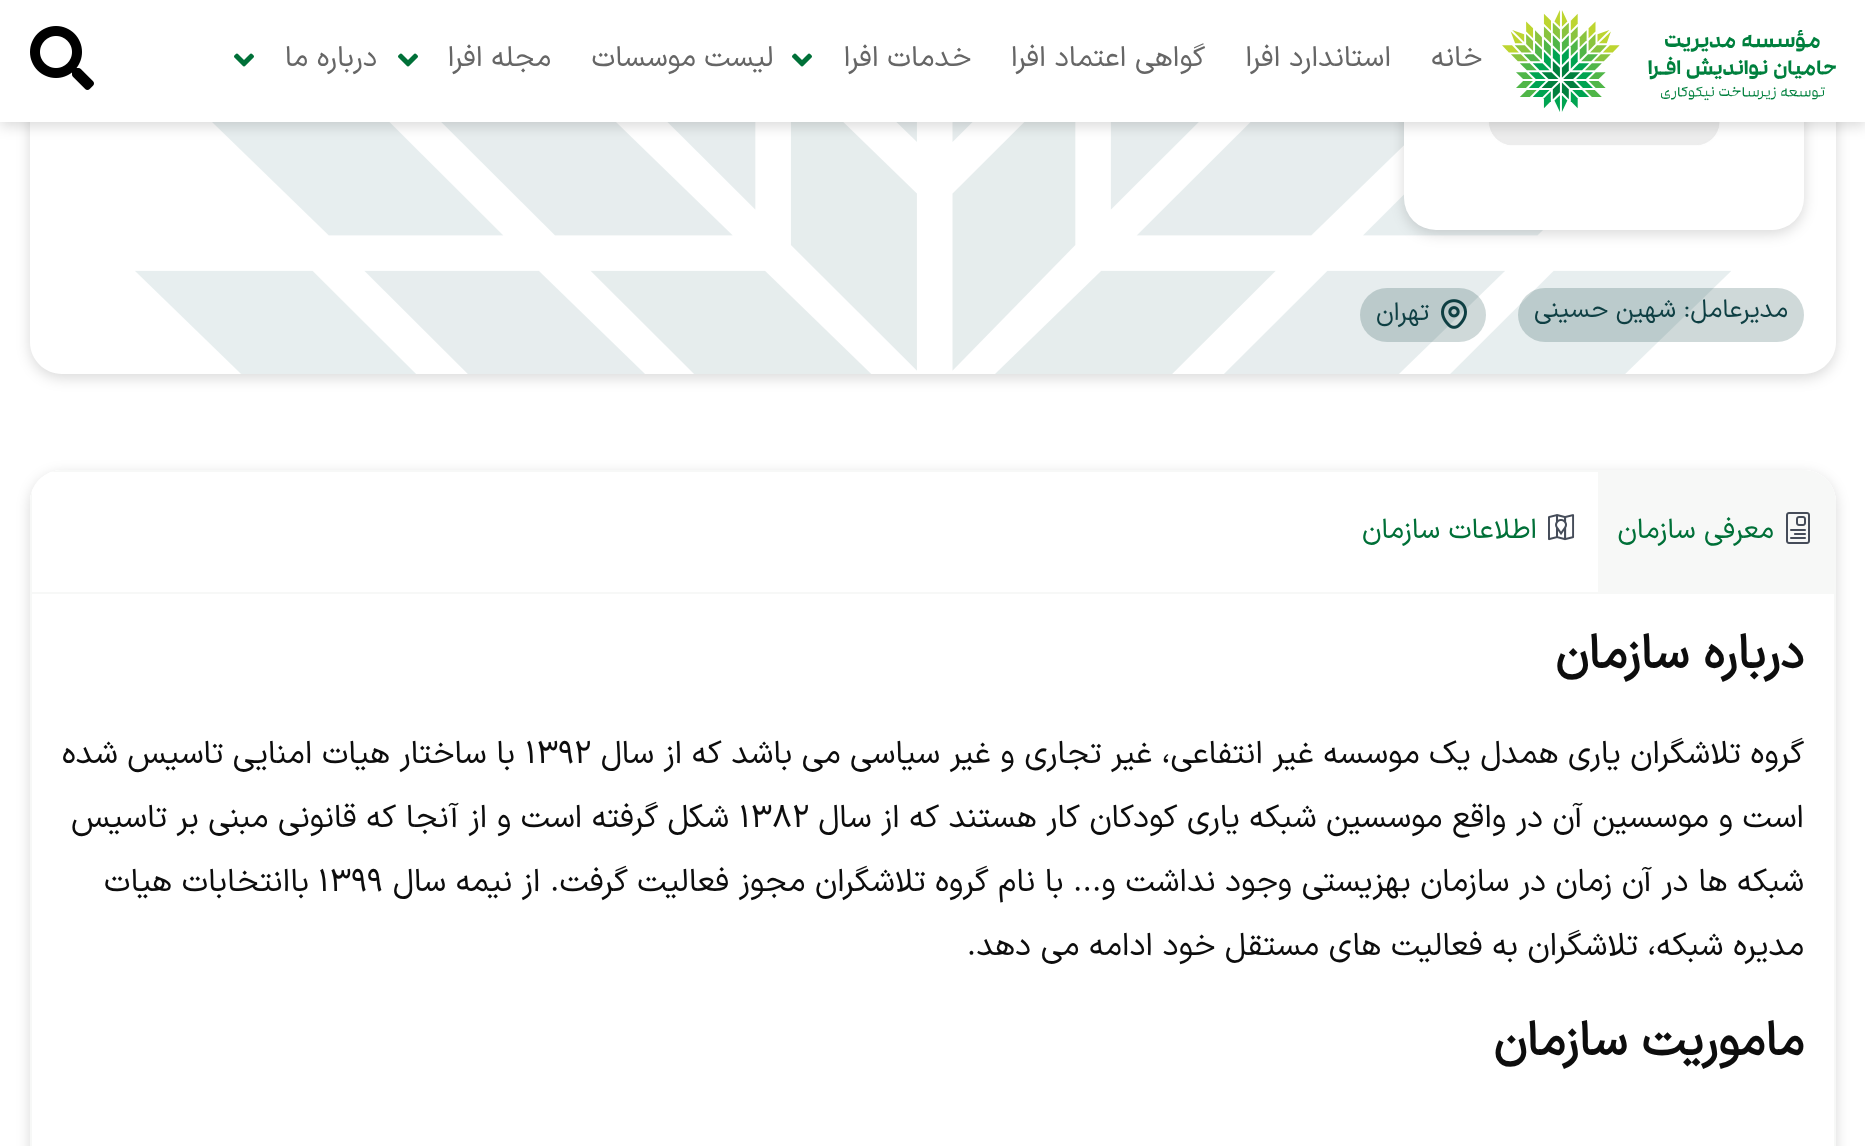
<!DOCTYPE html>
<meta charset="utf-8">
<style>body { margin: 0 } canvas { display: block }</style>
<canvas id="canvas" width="1865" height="1146"></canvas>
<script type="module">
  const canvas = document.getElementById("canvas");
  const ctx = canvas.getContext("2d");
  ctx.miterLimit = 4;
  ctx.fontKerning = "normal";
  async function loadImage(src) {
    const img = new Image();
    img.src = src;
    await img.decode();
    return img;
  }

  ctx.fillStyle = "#ffffff";
  ctx.fillRect(0, 0, 1865, 1146);
  ctx.save();
  ctx.beginPath();
  ctx.moveTo(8, 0);
  ctx.lineTo(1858, 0);
  ctx.lineTo(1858, 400);
  ctx.lineTo(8, 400);
  ctx.closePath();
  ctx.moveTo(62, -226);
  ctx.lineTo(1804, -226);
  ctx.bezierCurveTo(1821.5, -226, 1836, -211.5, 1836, -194);
  ctx.lineTo(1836, 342);
  ctx.bezierCurveTo(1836, 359.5, 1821.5, 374, 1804, 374);
  ctx.lineTo(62, 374);
  ctx.bezierCurveTo(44.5, 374, 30, 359.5, 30, 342);
  ctx.lineTo(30, -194);
  ctx.bezierCurveTo(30, -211.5, 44.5, -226, 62, -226);
  ctx.closePath();
  ctx.clip("evenodd");
  ctx.fillStyle = "rgba(0, 0, 0, 0.15)";
  ctx.filter = "blur(7px)";
  ctx.beginPath();
  ctx.roundRect(30, -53, 1806, 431, 32);
  ctx.fill();
  ctx.filter = "none";
  ctx.restore();
  ctx.drawImage(await loadImage("img4.png"), 135, 122, 1596, 252);
  ctx.fillStyle = "rgba(0, 0, 0, 0.15)";
  ctx.filter = "blur(7px)";
  ctx.beginPath();
  ctx.roundRect(1404, -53, 400, 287, 32);
  ctx.fill();
  ctx.filter = "none";
  ctx.drawImage(await loadImage("img5.png"), 1404, 122, 400, 108);
  ctx.filter = "blur(7px)";
  ctx.beginPath();
  ctx.rect(0, 4, 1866, 122);
  ctx.fill();
  ctx.filter = "none";
  ctx.fillStyle = "#ffffff";
  ctx.fillRect(0, 0, 1865, 122);
  ctx.drawImage(await loadImage("img1.png"), 1502, 10, 334, 102);
  ctx.direction = "rtl";
  ctx.font = "28.75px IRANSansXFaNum";
  ctx.fillStyle = "#666666";
  ctx.fillText("خانه", 1482, 66);
  ctx.fillText("استاندارد افرا", 1391, 66);
  ctx.fillText("گواهی اعتماد افرا", 1205, 66);
  ctx.fillText("خدمات افرا", 971, 66);
  ctx.drawImage(await loadImage("img2.png"), 792, 53, 20, 14);
  ctx.fillText("لیست موسسات", 773, 66);
  ctx.fillText("مجله افرا", 551, 66);
  ctx.drawImage(await loadImage("img2.png"), 398, 53, 20, 14);
  ctx.fillText("درباره ما", 377, 66);
  ctx.drawImage(await loadImage("img2.png"), 234, 53, 20, 14);
  ctx.drawImage(await loadImage("img3.png"), 30, 26, 64, 64);
  ctx.fillStyle = "rgba(14, 63, 67, 0.2)";
  ctx.beginPath();
  ctx.roundRect(1518, 288, 286, 54, 27);
  ctx.fill();
  ctx.font = "25.5px IRANSansXFaNum";
  ctx.fillStyle = "#0e3f43";
  ctx.fillText("مدیرعامل: شهین حسینی", 1788, 317);
  ctx.fillStyle = "rgba(14, 63, 67, 0.2)";
  ctx.beginPath();
  ctx.roundRect(1360, 288, 126, 54, 27);
  ctx.fill();
  ctx.drawImage(await loadImage("img6.png"), 1441, 299, 26, 30);
  ctx.fillStyle = "#0e3f43";
  ctx.fillText("تهران", 1429, 320);
  ctx.save();
  ctx.beginPath();
  ctx.moveTo(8, 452);
  ctx.lineTo(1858, 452);
  ctx.lineTo(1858, 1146);
  ctx.lineTo(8, 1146);
  ctx.closePath();
  ctx.moveTo(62, 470);
  ctx.lineTo(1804, 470);
  ctx.bezierCurveTo(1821.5, 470, 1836, 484.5, 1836, 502);
  ctx.lineTo(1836, 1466);
  ctx.bezierCurveTo(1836, 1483.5, 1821.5, 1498, 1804, 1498);
  ctx.lineTo(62, 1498);
  ctx.bezierCurveTo(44.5, 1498, 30, 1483.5, 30, 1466);
  ctx.lineTo(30, 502);
  ctx.bezierCurveTo(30, 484.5, 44.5, 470, 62, 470);
  ctx.closePath();
  ctx.clip("evenodd");
  ctx.fillStyle = "rgba(0, 0, 0, 0.15)";
  ctx.filter = "blur(7px)";
  ctx.beginPath();
  ctx.roundRect(30, 474, 1806, 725, 32);
  ctx.fill();
  ctx.filter = "none";
  ctx.restore();
  ctx.fillStyle = "#ffffff";
  ctx.beginPath();
  ctx.roundRect(30, 470, 1806, 124, [32, 32, 0, 0]);
  ctx.fill();
  ctx.fillStyle = "#f7f8f7";
  ctx.beginPath();
  ctx.moveTo(30, 502);
  ctx.lineTo(30, 594);
  ctx.lineTo(1836, 594);
  ctx.lineTo(1836, 502);
  ctx.bezierCurveTo(1836, 498, 1835, 494, 1834, 491);
  ctx.lineTo(1834, 592);
  ctx.lineTo(32, 592);
  ctx.lineTo(32, 491);
  ctx.bezierCurveTo(31, 494, 30, 498, 30, 502);
  ctx.closePath();
  ctx.moveTo(62, 470);
  ctx.bezierCurveTo(58, 470, 54, 471, 51, 472);
  ctx.lineTo(1815, 472);
  ctx.bezierCurveTo(1812, 471, 1808, 470, 1804, 470);
  ctx.closePath();
  ctx.fill("evenodd");
  ctx.save();
  ctx.beginPath();
  ctx.roundRect(30, 470, 1806, 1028, 32);
  ctx.clip();
  ctx.fillRect(1598, 472, 236, 120);
  ctx.restore();
  ctx.drawImage(await loadImage("img7.png"), 1786, 512, 24, 32);
  ctx.font = "28px IRANSansXFaNum";
  ctx.fillStyle = "#007038";
  ctx.fillText("معرفی سازمان", 1774, 538);
  ctx.drawImage(await loadImage("img8.png"), 1548, 514, 27, 27);
  ctx.fillText("اطلاعات سازمان", 1537, 538);
  ctx.fillStyle = "#f7f8f7";
  ctx.fillRect(1834, 594, 2, 552);
  ctx.fillRect(30, 594, 2, 552);
  ctx.font = "bold 48px IRANSansXFaNum";
  ctx.fillStyle = "#0d0d0d";
  ctx.fillText("درباره سازمان", 1804, 668);
  ctx.font = "32px IRANSansXFaNum";
  ctx.fillText("گروه تلاشگران یاری همدل یک موسسه غیر انتفاعی، غیر تجاری و غیر سیاسی می باشد که از سال", 1804, 763);
  ctx.direction = "ltr";
  ctx.fillText("1392", 525, 763);
  ctx.direction = "rtl";
  ctx.fillText("با ساختار هیات امنایی تاسیس شده", 515, 763);
  ctx.fillText("است و موسسین آن در واقع موسسین شبکه یاری کودکان کار هستند که از سال", 1804, 827);
  ctx.direction = "ltr";
  ctx.fillText("1382", 739, 827);
  ctx.direction = "rtl";
  ctx.fillText("شکل گرفته است و از آنجا که قانونی مبنی بر تاسیس", 729, 827);
  ctx.fillText("شبکه ها در آن زمان در سازمان بهزیستی وجود نداشت و... با نام گروه تلاشگران مجوز فعالیت گرفت. از نیمه سال", 1804, 891);
  ctx.direction = "ltr";
  ctx.fillText("1399", 318, 891);
  ctx.direction = "rtl";
  ctx.fillText("باانتخابات هیات", 309, 891);
  ctx.fillText("مدیره شبکه، تلاشگران به فعالیت های مستقل خود ادامه می دهد.", 1804, 955);
  ctx.font = "bold 48px IRANSansXFaNum";
  ctx.fillText("ماموریت سازمان", 1804, 1055);
</script>
